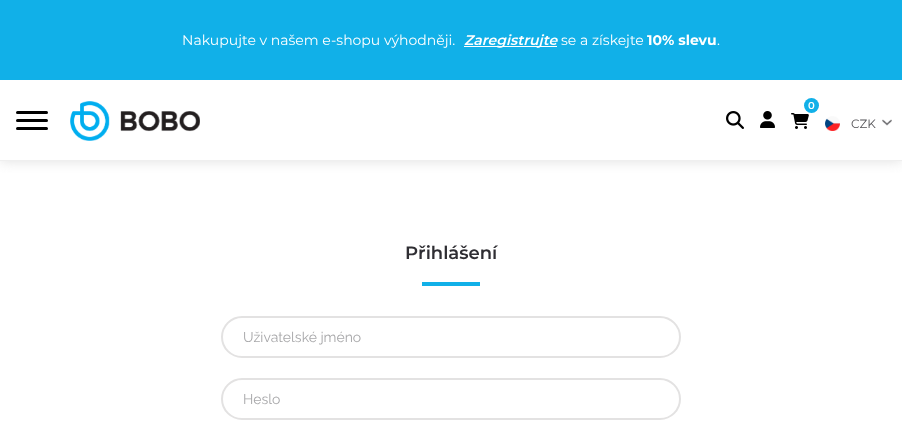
<!DOCTYPE html>
<meta charset="utf-8">
<style>body { margin: 0 } canvas { display: block }</style>
<canvas id="canvas" width="902" height="423"></canvas>
<script type="module">
  const canvas = document.getElementById("canvas");
  const ctx = canvas.getContext("2d");
  ctx.miterLimit = 4;
  ctx.fontKerning = "normal";
  async function loadImage(src) {
    const img = new Image();
    img.src = src;
    await img.decode();
    return img;
  }

  ctx.fillStyle = "#ffffff";
  ctx.fillRect(0, 0, 902, 423);
  ctx.save();
  ctx.beginPath();
  ctx.rect(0, 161, 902, 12);
  ctx.clip();
  ctx.fillStyle = "rgba(194, 194, 194, 0.53)";
  ctx.filter = "blur(6.5px)";
  ctx.beginPath();
  ctx.rect(0, 0, 902, 161);
  ctx.fill();
  ctx.filter = "none";
  ctx.restore();
  ctx.fillStyle = "#efefef";
  ctx.fillRect(0, 160, 902, 1);
  ctx.fillStyle = "#11b0e8";
  ctx.fillRect(0, 0, 902, 80);
  ctx.font = "14px Montserrat";
  ctx.fillStyle = "#ffffff";
  ctx.fillText("Nakupujte v našem e-shopu výhodněji.", 182, 45);
  ctx.fillRect(464, 46, 93, 1);
  ctx.font = "italic 600 14px Montserrat";
  ctx.fillText("Zaregistrujte", 464, 45);
  ctx.font = "14px Montserrat";
  ctx.fillText("se a získejte", 561, 45);
  ctx.font = "bold 14px Montserrat";
  ctx.fillText("10% slevu", 647, 45);
  ctx.font = "14px Montserrat";
  ctx.fillText(".", 717, 45);
  ctx.fillStyle = "#000000";
  ctx.beginPath();
  ctx.roundRect(16, 111, 32, 3, 1.5);
  ctx.fill();
  ctx.beginPath();
  ctx.roundRect(16, 119, 32, 3, 1.5);
  ctx.fill();
  ctx.beginPath();
  ctx.roundRect(16, 127, 32, 3, 1.5);
  ctx.fill();
  ctx.drawImage(await loadImage("img1.png"), 70, 101, 130, 40);
  ctx.drawImage(await loadImage("img2.png"), 791, 113, 18, 16);
  ctx.fillStyle = "#11b0e8";
  ctx.beginPath();
  ctx.arc(811.5, 105.5, 7.5, 0, Math.PI * 2);
  ctx.fill();
  ctx.font = "600 10px Montserrat";
  ctx.fillStyle = "#ffffff";
  ctx.fillText("0", 808, 109);
  ctx.drawImage(await loadImage("img3.png"), 726, 111, 18, 18);
  ctx.drawImage(await loadImage("img4.png"), 760, 111, 15, 17);
  ctx.drawImage(await loadImage("img5.png"), 825, 116, 15, 15);
  ctx.font = "12px Montserrat";
  ctx.fillStyle = "#515054";
  ctx.fillText("CZK", 851, 128);
  ctx.drawImage(await loadImage("img6.png"), 882, 119, 10, 7);
  ctx.font = "600 18px Montserrat";
  ctx.fillStyle = "#2f2e33";
  ctx.fillText("Přihlášení", 405, 259);
  ctx.fillStyle = "#11b0e8";
  ctx.fillRect(422, 282, 58, 4);
  ctx.beginPath();
  ctx.roundRect(222, 317, 458, 40, 20);
  ctx.strokeStyle = "#e3e2e2";
  ctx.lineWidth = 2;
  ctx.stroke();
  ctx.font = "14px Raleway";
  ctx.fillStyle = "#a8a8aa";
  ctx.fillText("Uživatelské jméno", 243, 342);
  ctx.beginPath();
  ctx.roundRect(222, 379, 458, 40, 20);
  ctx.stroke();
  ctx.fillText("Heslo", 243, 404);
</script>
